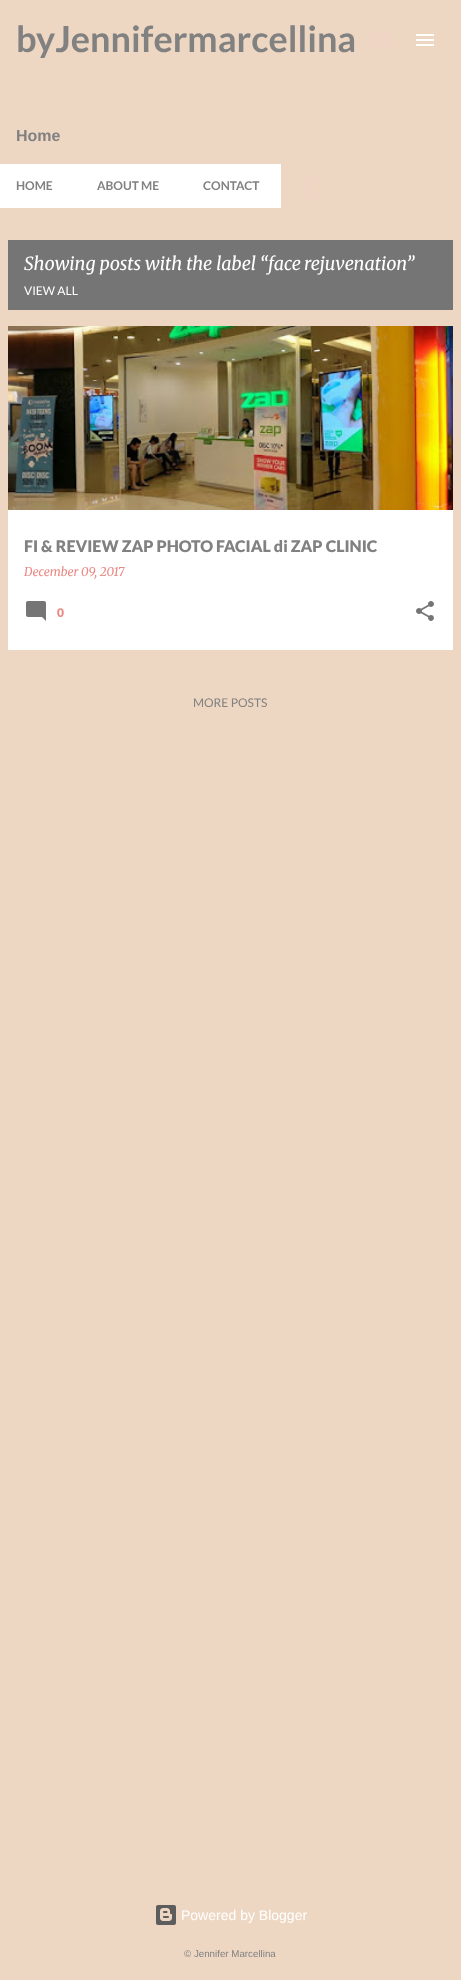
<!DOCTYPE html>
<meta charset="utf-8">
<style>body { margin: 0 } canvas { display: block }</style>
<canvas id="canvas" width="461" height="1980"></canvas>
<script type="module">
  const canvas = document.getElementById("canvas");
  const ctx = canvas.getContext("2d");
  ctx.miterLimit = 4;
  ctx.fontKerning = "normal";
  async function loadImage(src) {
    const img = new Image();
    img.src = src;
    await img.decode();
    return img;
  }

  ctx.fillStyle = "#eed7c2";
  ctx.fillRect(0, 0, 461, 1980);
  ctx.font = "bold 36px Lato";
  ctx.fillStyle = "#818181";
  ctx.fillText("byJennifermarcellina", 16, 52);
  ctx.drawImage(await loadImage("img1.png"), 376, 31, 17, 17);
  ctx.drawImage(await loadImage("img2.png"), 416, 34, 18, 12);
  ctx.font = "bold 16px Liberation Sans";
  ctx.fillText("Home", 16, 141);
  ctx.fillStyle = "#ffffff";
  ctx.fillRect(0, 164, 281, 44);
  ctx.font = "bold 12px Lato";
  ctx.fillStyle = "#818181";
  ctx.fillText("HOME", 16, 190);
  ctx.fillText("ABOUT ME", 97, 190);
  ctx.fillText("CONTACT", 203, 190);
  ctx.drawImage(await loadImage("img3.png"), 307, 178, 4, 16);
  ctx.fillStyle = "#757575";
  ctx.fillRect(8, 240, 445, 70);
  ctx.font = "italic 18px Merriweather";
  ctx.fillStyle = "#ffffff";
  ctx.fillText("Showing posts with the label “", 24, 270);
  ctx.wordSpacing = "-1px";
  ctx.fillText("face rejuvenation", 268, 270);
  ctx.wordSpacing = "0px";
  ctx.fillText("”", 406, 270);
  ctx.font = "12px Lato";
  ctx.fillText("VIEW ALL", 24, 295);
  ctx.fillRect(8, 510, 445, 140);
  ctx.drawImage(await loadImage("img4.png"), 8, 326, 445, 184);
  ctx.font = "900 16px Lato";
  ctx.fillStyle = "#818181";
  ctx.fillText("FI & REVIEW ZAP PHOTO FACIAL di ZAP CLINIC", 24, 552);
  ctx.font = "italic 12px Merriweather";
  ctx.fillStyle = "#ea8984";
  ctx.fillText("December 09, 2017", 24, 576);
  ctx.drawImage(await loadImage("img5.png"), 26, 601, 20, 20);
  ctx.font = "900 12px Lato";
  ctx.fillText("0", 57, 617);
  ctx.drawImage(await loadImage("img6.png"), 416, 601, 18, 20);
  ctx.font = "12px Lato";
  ctx.fillStyle = "#818181";
  ctx.fillText("MORE POSTS", 193, 707);
  ctx.drawImage(await loadImage("img7.png"), 156, 1905, 20, 20);
  ctx.font = "14px Liberation Sans";
  ctx.fillStyle = "#ffffff";
  ctx.fillText("Powered by Blogger", 181, 1920);
  ctx.font = "9.75px Liberation Sans";
  ctx.fillStyle = "#818181";
  ctx.fillText("© Jennifer Marcellina", 184, 1957);
</script>
